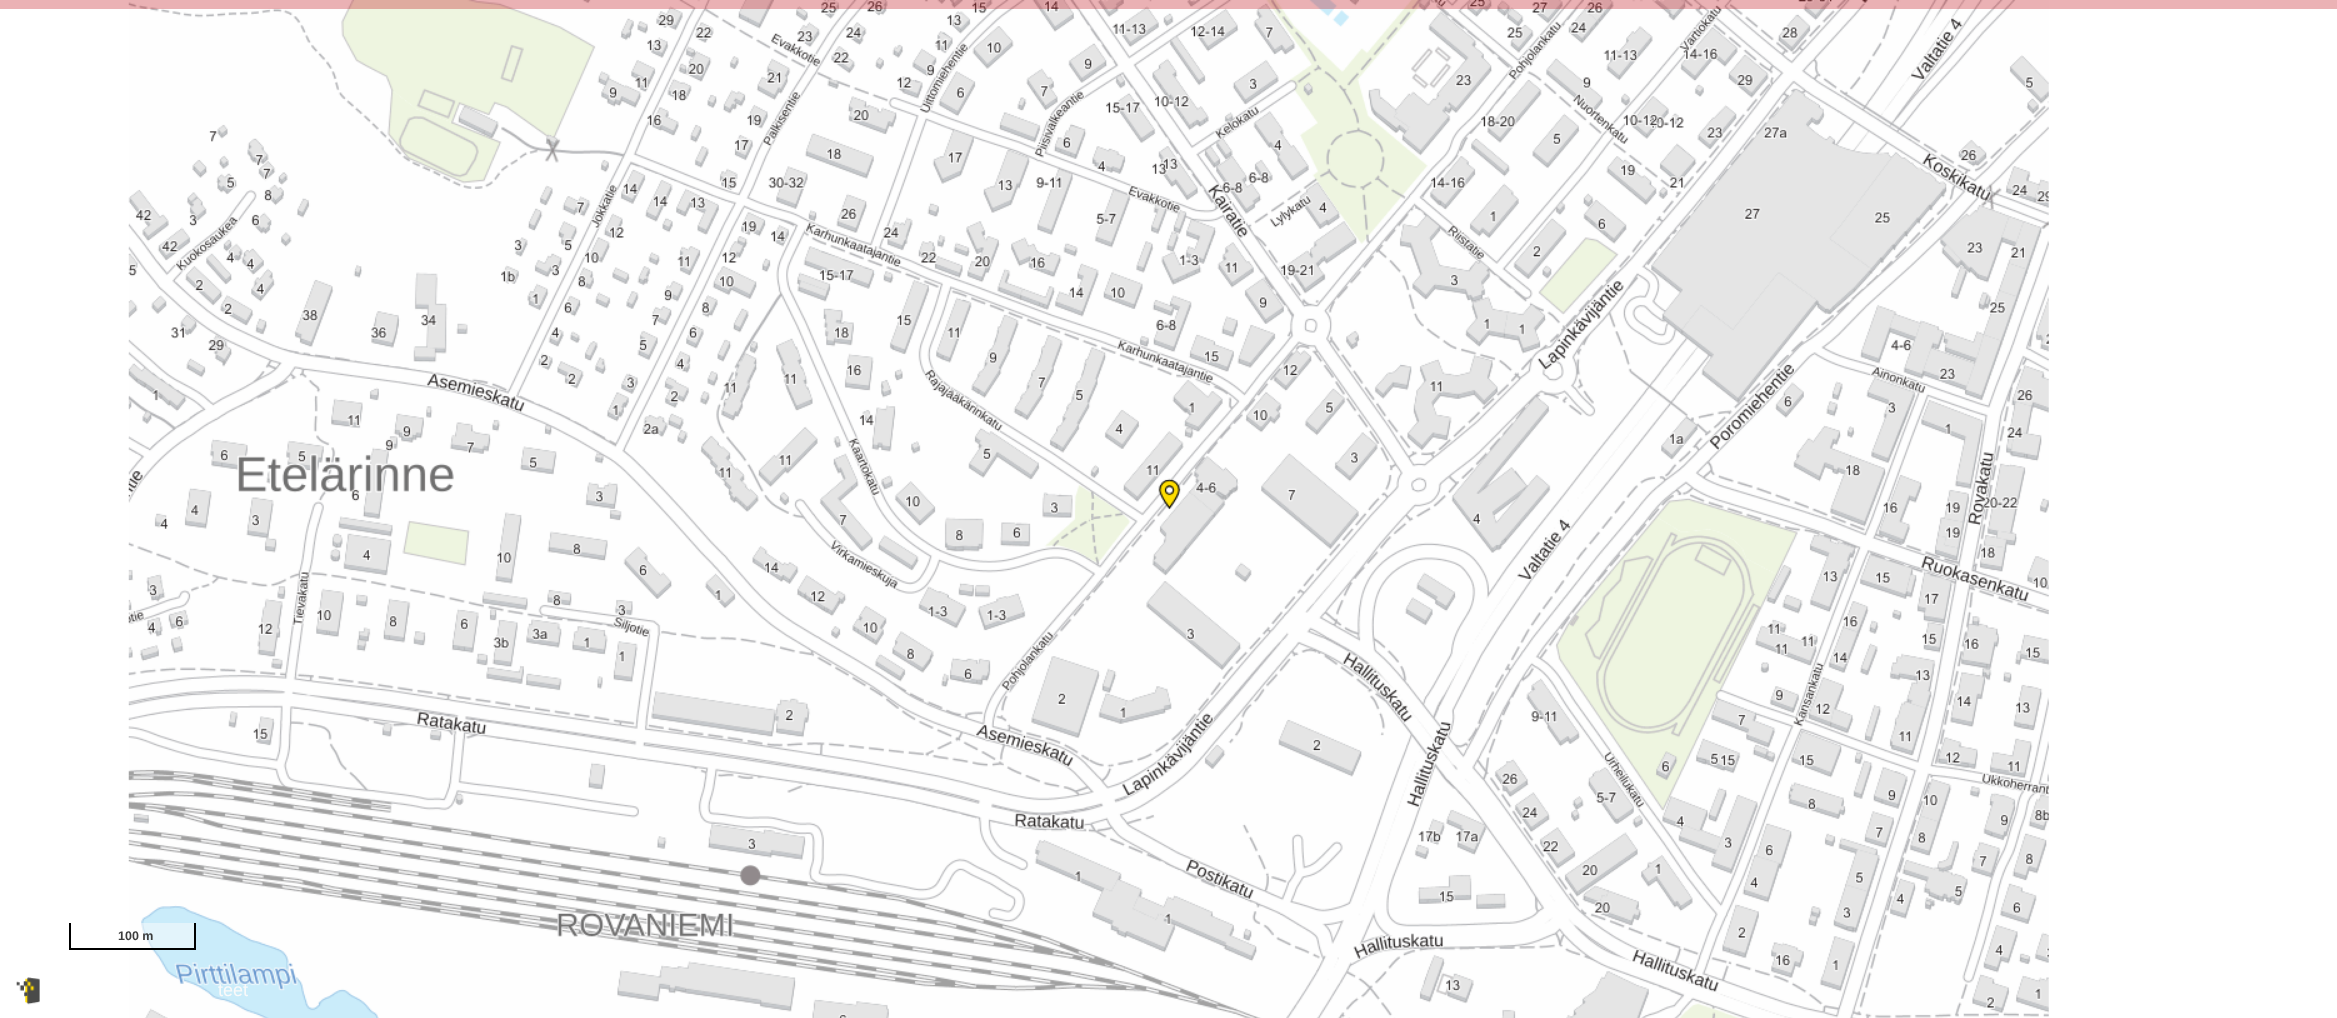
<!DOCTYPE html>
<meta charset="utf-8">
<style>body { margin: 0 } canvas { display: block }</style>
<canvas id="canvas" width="2337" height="1018"></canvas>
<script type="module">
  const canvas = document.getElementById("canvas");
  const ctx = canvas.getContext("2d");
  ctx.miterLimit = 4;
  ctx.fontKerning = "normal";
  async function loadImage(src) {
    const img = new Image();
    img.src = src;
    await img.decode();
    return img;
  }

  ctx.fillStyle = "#ffffff";
  ctx.fillRect(0, 0, 2337, 1018);
  ctx.drawImage(await loadImage("img1.png"), 128, 0, 1921, 1018);
  ctx.fillStyle = "rgba(190, 0, 10, 0.3)";
  ctx.fillRect(0, 0, 2337, 9);
  ctx.fillStyle = "#000000";
  ctx.fillRect(195, 923, 1, 27);
  ctx.fillRect(69, 949, 127, 1);
  ctx.fillRect(69, 923, 1, 27);
  ctx.fillRect(194, 923, 1, 26);
  ctx.fillRect(70, 948, 125, 1);
  ctx.fillRect(70, 923, 1, 26);
  ctx.fillStyle = "rgba(255, 255, 255, 0.2)";
  ctx.fillRect(141, 923, 53, 25);
  ctx.fillRect(141, 923, 53, 25);
  ctx.fillRect(141, 923, 53, 25);
  ctx.font = "bold 12.5px Liberation Sans";
  ctx.fillStyle = "#3c3c3c";
  ctx.fillText("100 m", 118, 940);
  ctx.drawImage(await loadImage("img2.png"), 16, 977, 24, 28);
  ctx.font = "18px Liberation Sans";
  ctx.fillStyle = "#fafafa";
  ctx.fillText("teet", 218, 996);
</script>
